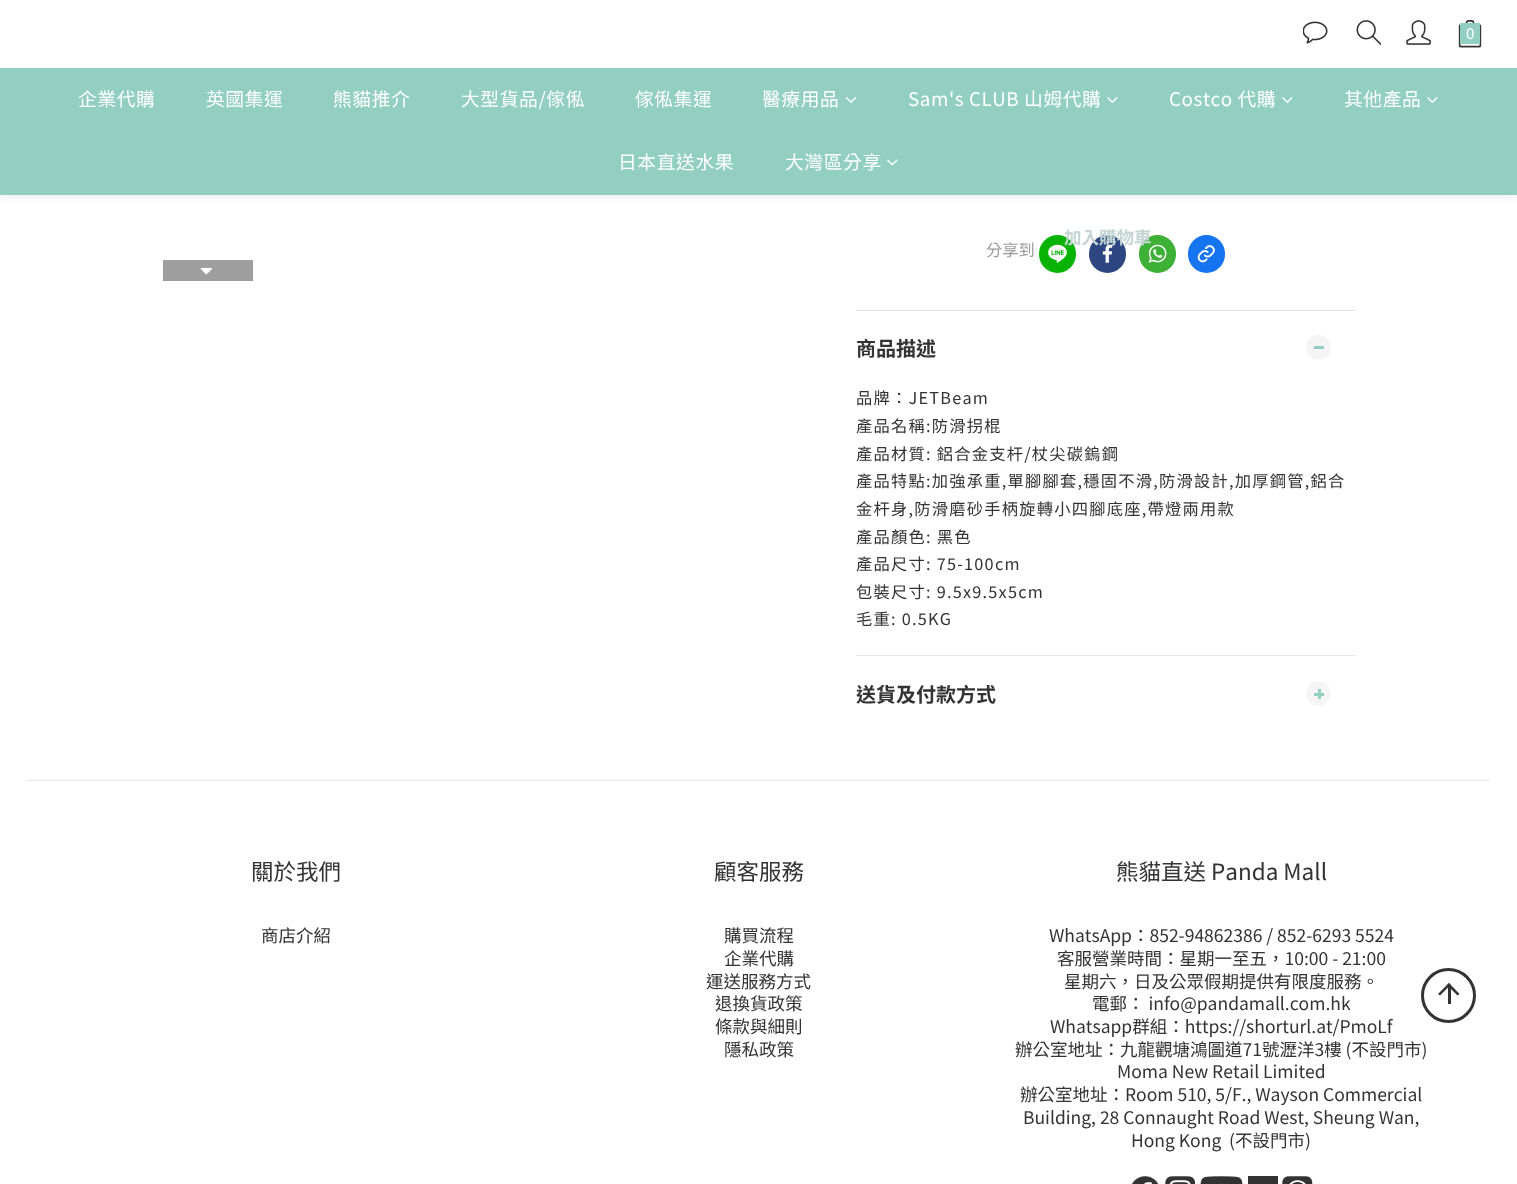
<!DOCTYPE html>
<meta charset="utf-8">
<style>body { margin: 0 } canvas { display: block }</style>
<canvas id="canvas" width="1517" height="1184"></canvas>
<script type="module">
  const canvas = document.getElementById("canvas");
  const ctx = canvas.getContext("2d");
  ctx.miterLimit = 4;
  ctx.fontKerning = "none";
  async function loadImage(src) {
    const img = new Image();
    img.src = src;
    await img.decode();
    return img;
  }

  ctx.fillStyle = "#ffffff";
  ctx.fillRect(0, 0, 1517, 1184);
  ctx.fillStyle = "rgba(0, 0, 0, 0.06)";
  ctx.filter = "blur(4px)";
  ctx.beginPath();
  ctx.rect(0, 3, 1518, 195);
  ctx.fill();
  ctx.filter = "none";
  ctx.fillStyle = "#ffffff";
  ctx.fillRect(0, 0, 1517, 68);
  ctx.drawImage(await loadImage("img1.png"), 1303, 21, 25, 23);
  ctx.drawImage(await loadImage("img2.png"), 1356, 20, 25, 25);
  ctx.drawImage(await loadImage("img3.png"), 1406, 20, 25, 25);
  ctx.drawImage(await loadImage("img4.png"), 1458, 20, 24, 28);
  ctx.fillStyle = "#92cfc0";
  ctx.fillRect(1460, 23, 20, 21);
  ctx.font = "15px Noto Sans TC";
  ctx.fillStyle = "#ffffff";
  ctx.fillText("0", 1466, 39);
  ctx.fillStyle = "#92cfc0";
  ctx.fillRect(0, 68, 1517, 127);
  ctx.letterSpacing = "0.6px";
  ctx.font = "18.75px Noto Sans TC";
  ctx.fillStyle = "#ffffff";
  ctx.fillText("企業代購", 78, 106);
  ctx.fillText("英國集運", 206, 106);
  ctx.fillText("熊貓推介", 333, 106);
  ctx.fillText("大型貨品/傢俬", 461, 106);
  ctx.fillText("傢俬集運", 635, 106);
  ctx.fillText("醫療用品", 762, 106);
  ctx.drawImage(await loadImage("img5.png"), 845, 97, 12, 6);
  ctx.fillText("Sam's CLUB 山姆代購", 908, 106);
  ctx.drawImage(await loadImage("img6.png"), 1107, 97, 11, 6);
  ctx.fillText("Costco 代購", 1169, 106);
  ctx.drawImage(await loadImage("img6.png"), 1282, 97, 11, 6);
  ctx.fillText("其他產品", 1344, 106);
  ctx.drawImage(await loadImage("img6.png"), 1427, 97, 11, 6);
  ctx.fillText("日本直送水果", 618, 169);
  ctx.fillText("大灣區分享", 785, 169);
  ctx.drawImage(await loadImage("img7.png"), 887, 159, 11, 7);
  ctx.fillStyle = "#09b305";
  ctx.beginPath();
  ctx.roundRect(1039, 235, 37, 38, 18.5);
  ctx.fill();
  ctx.drawImage(await loadImage("img9.png"), 1048, 244, 19, 19);
  ctx.fillStyle = "#2d4682";
  ctx.beginPath();
  ctx.roundRect(1089, 235, 37, 38, 18.5);
  ctx.fill();
  ctx.drawImage(await loadImage("img10.png"), 1102, 244, 11, 19);
  ctx.fillStyle = "#3cb136";
  ctx.beginPath();
  ctx.roundRect(1139, 235, 37, 38, 18.5);
  ctx.fill();
  ctx.drawImage(await loadImage("img11.png"), 1148, 244, 19, 19);
  ctx.letterSpacing = "0px";
  ctx.font = "bold 17.5px Noto Sans TC";
  ctx.fillStyle = "#c4d5d4";
  ctx.fillText("加入購物車", 1064, 244);
  ctx.fillStyle = "#9e9e9e";
  ctx.fillRect(163, 260, 90, 21);
  ctx.drawImage(await loadImage("img8.png"), 200, 267, 12, 8);
  ctx.font = "16.25px Noto Sans TC";
  ctx.fillStyle = "#999999";
  ctx.fillText("分享到", 986, 256);
  ctx.fillStyle = "#1575f0";
  ctx.beginPath();
  ctx.roundRect(1188, 235, 37, 38, 18.5);
  ctx.fill();
  ctx.drawImage(await loadImage("img12.png"), 1197, 245, 18, 18);
  ctx.fillStyle = "#e6e6e6";
  ctx.fillRect(856, 310, 500, 1);
  ctx.font = "bold 20px Noto Sans TC";
  ctx.fillStyle = "#333333";
  ctx.fillText("商品描述", 856, 356);
  ctx.fillStyle = "#f5f5f5";
  ctx.beginPath();
  ctx.arc(1318.5, 347.5, 12.5, 0, Math.PI * 2);
  ctx.fill();
  ctx.fillStyle = "#92cfc0";
  ctx.fillRect(1314, 346, 10, 3);
  ctx.letterSpacing = "1.25px";
  ctx.font = "16.25px Noto Sans TC";
  ctx.fillStyle = "#333333";
  ctx.fillText("品牌：JETBeam", 856, 404);
  ctx.fillText("產品名稱:防滑拐棍", 856, 432);
  ctx.fillText("產品材質: 鋁合金支杆/杖尖碳鎢鋼", 856, 460);
  ctx.fillText("產品特點:加強承重,單腳腳套,穩固不滑,防滑設計,加厚鋼管,鋁合", 856, 487);
  ctx.fillText("金杆身,防滑磨砂手柄旋轉小四腳底座,帶燈兩用款", 856, 515);
  ctx.fillText("產品顏色: 黑色", 856, 543);
  ctx.fillText("產品尺寸: 75-100cm", 856, 570);
  ctx.fillText("包裝尺寸: 9.5x9.5x5cm", 856, 598);
  ctx.fillText("毛重: 0.5KG", 856, 625);
  ctx.fillStyle = "#e6e6e6";
  ctx.fillRect(856, 655, 500, 1);
  ctx.letterSpacing = "0px";
  ctx.font = "bold 20px Noto Sans TC";
  ctx.fillStyle = "#333333";
  ctx.fillText("送貨及付款方式", 856, 702);
  ctx.fillStyle = "#f5f5f5";
  ctx.beginPath();
  ctx.arc(1318.5, 693.5, 12.5, 0, Math.PI * 2);
  ctx.fill();
  ctx.fillStyle = "#92cfc0";
  ctx.fillRect(1314, 693, 10, 3);
  ctx.fillRect(1318, 689, 3, 10);
  ctx.fillStyle = "#e6e6e6";
  ctx.fillRect(28, 780, 1462, 1);
  ctx.font = "22.5px Noto Sans TC";
  ctx.fillStyle = "#333333";
  ctx.fillText("關於我們", 251, 880);
  ctx.font = "17.5px Noto Sans TC";
  ctx.fillText("商店介紹", 261, 942);
  ctx.font = "22.5px Noto Sans TC";
  ctx.fillText("顧客服務", 714, 880);
  ctx.font = "17.5px Noto Sans TC";
  ctx.fillText("購買流程", 724, 942);
  ctx.fillText("企業代購", 724, 965);
  ctx.fillText("運送服務方式", 706, 988);
  ctx.fillText("退換貨政策", 715, 1010);
  ctx.fillText("條款與細則", 715, 1033);
  ctx.fillText("隱私政策", 724, 1056);
  ctx.font = "22.5px Noto Sans TC";
  ctx.fillText("熊貓直送 Panda Mall", 1116, 880);
  ctx.font = "17.5px Noto Sans TC";
  ctx.fillText("WhatsApp：852-94862386 / 852-6293 5524", 1049, 942);
  ctx.fillText("客服營業時間：星期一至五，10:00 - 21:00", 1057, 965);
  ctx.fillText("星期六，日及公眾假期提供有限度服務。", 1064, 988);
  ctx.fillText("電郵： info@pandamall.com.hk", 1092, 1010);
  ctx.fillText("Whatsapp群組：https://shorturl.at/PmoLf", 1050, 1033);
  ctx.fillText("辦公室地址：九龍觀塘鴻圖道71號瀝洋3樓 (不設門市)", 1015, 1056);
  ctx.fillText("Moma New Retail Limited", 1117, 1078);
  ctx.fillText("辦公室地址：Room 510, 5/F., Wayson Commercial", 1020, 1101);
  ctx.fillText("Building, 28 Connaught Road West, Sheung Wan,", 1023, 1124);
  ctx.fillText("Hong Kong  (不設門市)", 1131, 1147);
  ctx.drawImage(await loadImage("img13.png"), 1132, 1176, 27, 8);
  ctx.drawImage(await loadImage("img14.png"), 1165, 1176, 30, 8);
  ctx.drawImage(await loadImage("img15.png"), 1200, 1176, 43, 8);
  ctx.fillRect(1248, 1176, 30, 8);
  ctx.drawImage(await loadImage("img16.png"), 1282, 1176, 31, 8);
  ctx.beginPath();
  ctx.arc(1448.5, 995.5, 26, 0, Math.PI * 2);
  ctx.strokeStyle = "#333333";
  ctx.lineWidth = 3;
  ctx.stroke();
  ctx.beginPath();
  ctx.moveTo(1449, 983);
  ctx.lineTo(1459.5, 994);
  ctx.lineTo(1457.5, 995.5);
  ctx.lineTo(1447, 985);
  ctx.closePath();
  ctx.fill();
  ctx.beginPath();
  ctx.moveTo(1449, 983);
  ctx.lineTo(1450.5, 985);
  ctx.lineTo(1440, 995.5);
  ctx.lineTo(1438, 994);
  ctx.closePath();
  ctx.fill();
  ctx.fillRect(1448, 986, 3, 18);
</script>
